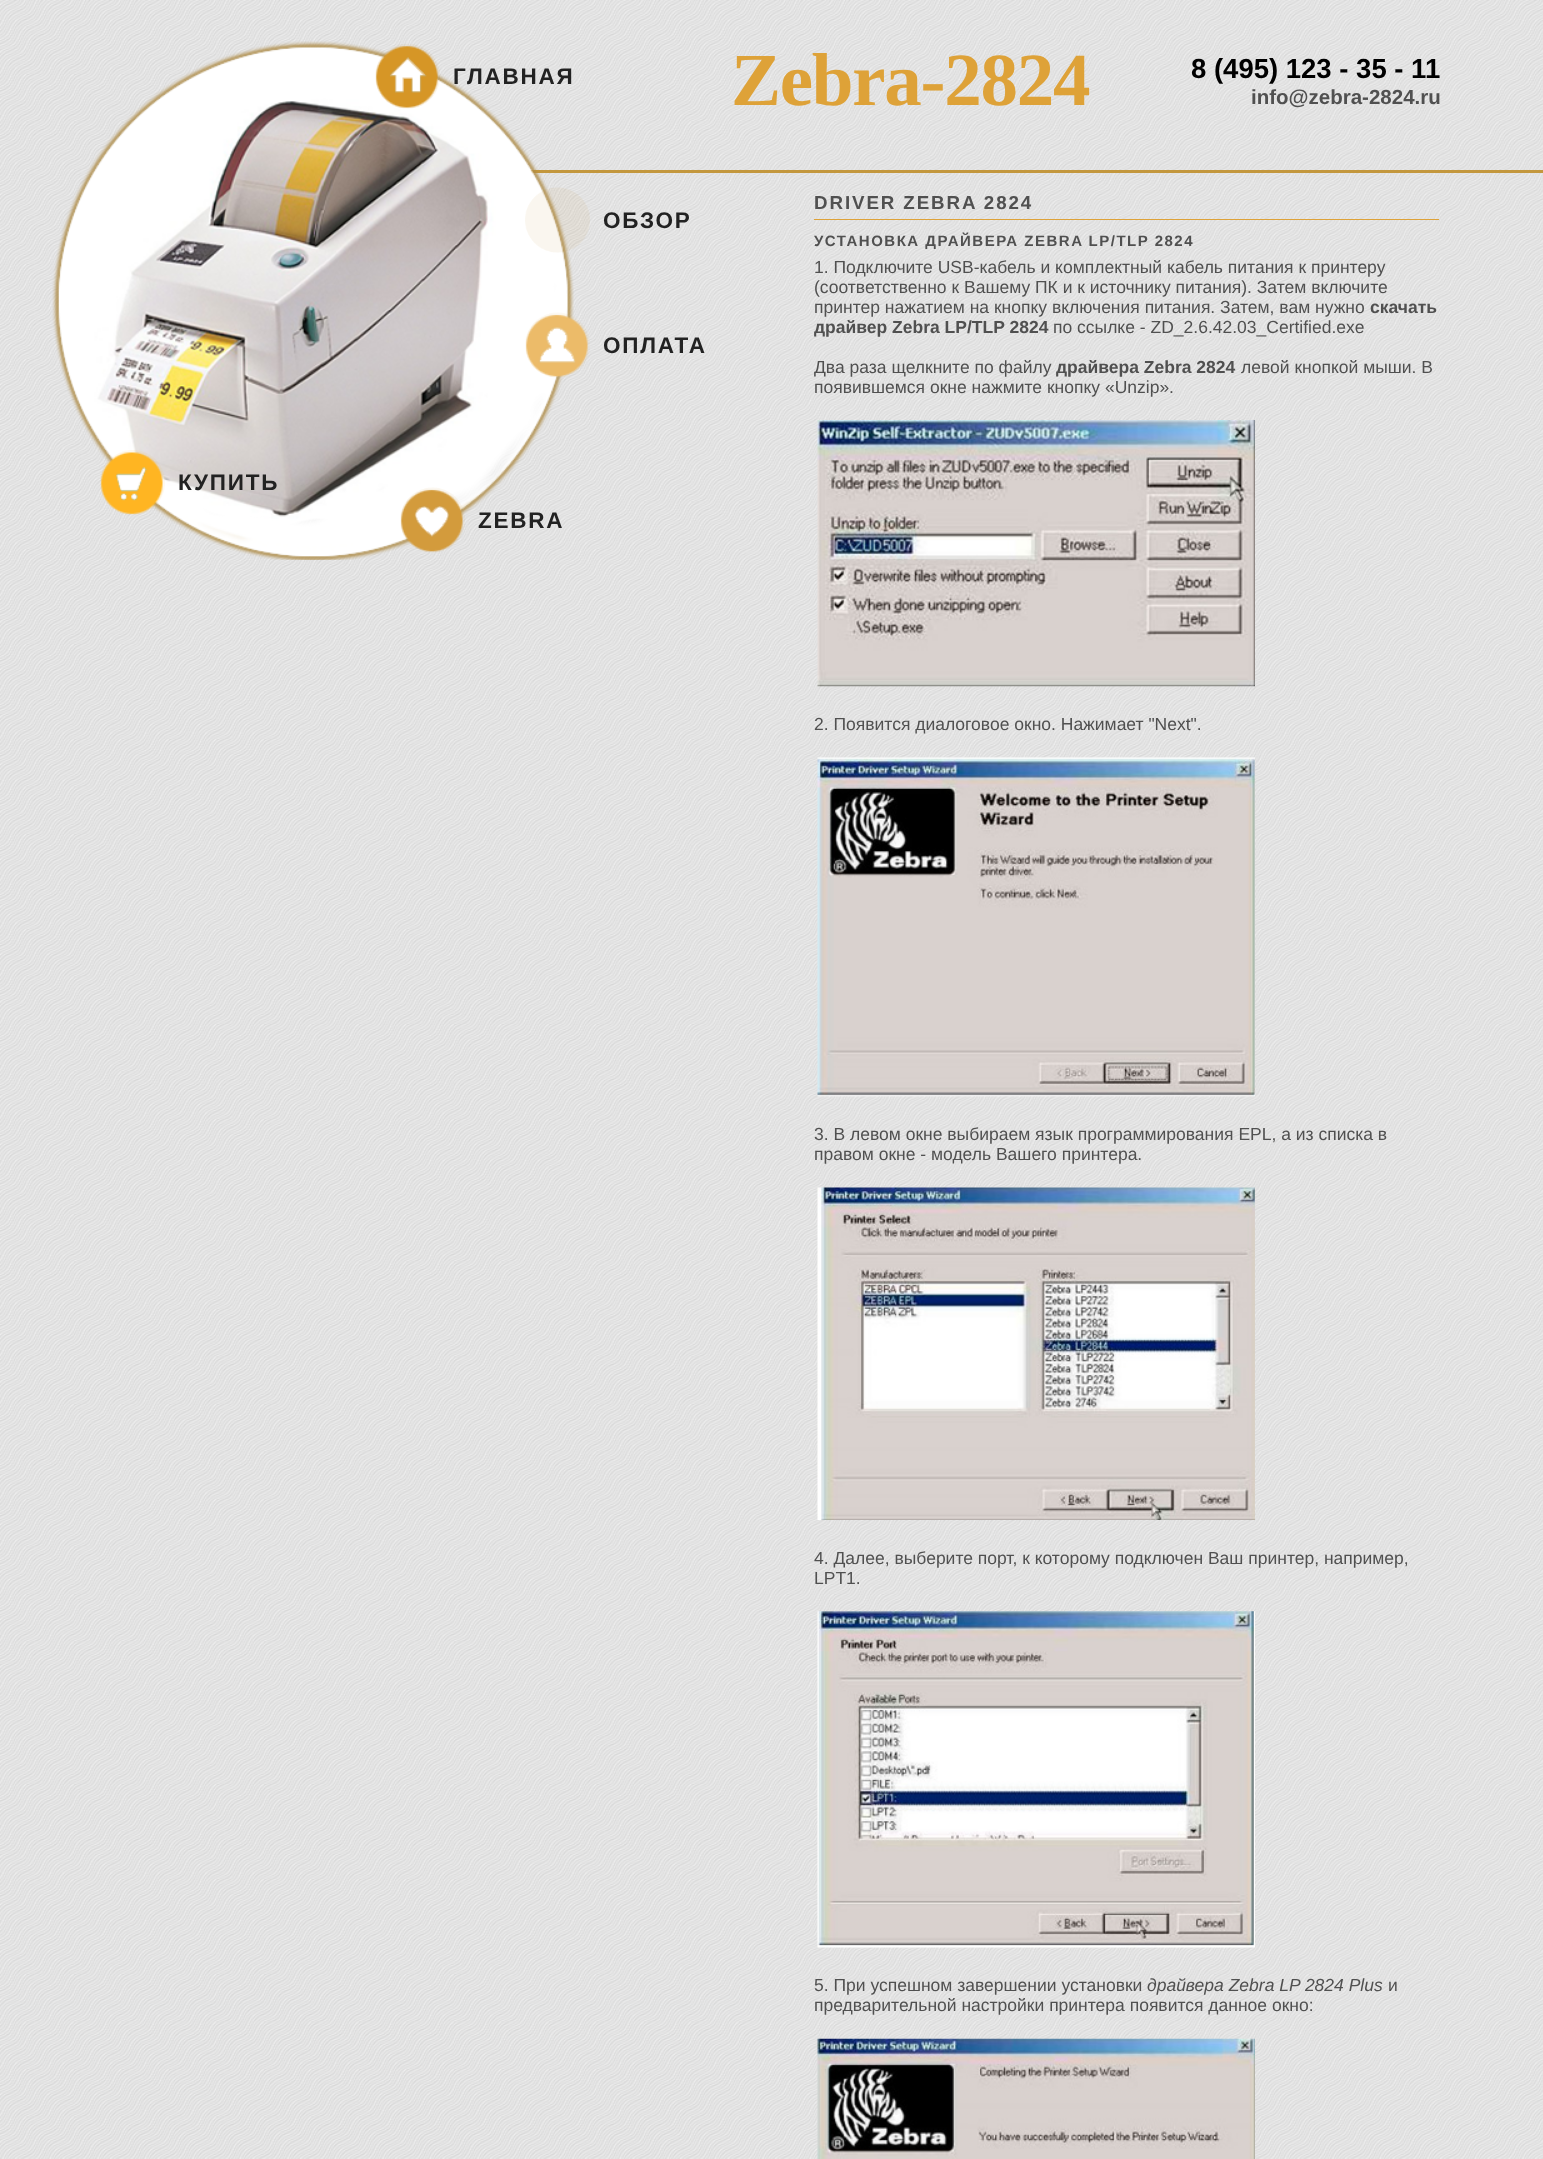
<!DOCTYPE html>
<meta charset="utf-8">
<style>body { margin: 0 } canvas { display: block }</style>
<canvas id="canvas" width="1543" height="2159"></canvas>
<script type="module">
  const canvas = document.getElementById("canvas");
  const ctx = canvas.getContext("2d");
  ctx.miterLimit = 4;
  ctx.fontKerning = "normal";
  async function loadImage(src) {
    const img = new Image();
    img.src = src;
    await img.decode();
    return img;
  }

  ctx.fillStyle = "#ffffff";
  ctx.fillRect(0, 0, 1543, 2159);
  ctx.drawImage(await loadImage("img1.png"), 0, 0, 1543, 2159);
  ctx.fillStyle = "#c3973d";
  ctx.fillRect(529, 170, 1014, 3);
  ctx.drawImage(await loadImage("img11.png"), 52, 41, 522, 519);
  ctx.drawImage(await loadImage("img2.png"), 375, 44, 65, 65);
  ctx.drawImage(await loadImage("img3.png"), 376, 46, 62, 62);
  ctx.letterSpacing = "1.75px";
  ctx.font = "bold 22.5px Liberation Sans";
  ctx.fillStyle = "#222222";
  ctx.fillText("ГЛАВНАЯ", 453, 84);
  ctx.drawImage(await loadImage("img4.png"), 525, 187, 65, 66);
  ctx.fillText("ОБЗОР", 603, 228);
  ctx.drawImage(await loadImage("img5.png"), 525, 312, 65, 66);
  ctx.drawImage(await loadImage("img6.png"), 526, 314, 62, 63);
  ctx.fillText("ОПЛАТА", 603, 353);
  ctx.drawImage(await loadImage("img7.png"), 100, 450, 65, 65);
  ctx.drawImage(await loadImage("img8.png"), 101, 452, 62, 62);
  ctx.fillText("КУПИТЬ", 178, 490);
  ctx.drawImage(await loadImage("img9.png"), 400, 487, 65, 66);
  ctx.drawImage(await loadImage("img10.png"), 401, 489, 62, 63);
  ctx.fillText("ZEBRA", 478, 528);
  ctx.letterSpacing = "-1.25px";
  ctx.font = "bold 75px Liberation Serif";
  ctx.fillStyle = "#dea238";
  ctx.fillText("Zebra-2824", 731, 105);
  ctx.letterSpacing = "0px";
  ctx.font = "bold 27.5px Liberation Sans";
  ctx.fillStyle = "#000000";
  ctx.fillText("8 (495) 123 - 35 - 11", 1191, 78);
  ctx.font = "bold 20.5px Liberation Sans";
  ctx.fillStyle = "#505050";
  ctx.fillText("info@zebra-2824.ru", 1251, 104);
  ctx.letterSpacing = "1.9px";
  ctx.font = "bold 18.75px Liberation Sans";
  ctx.fillText("DRIVER ZEBRA 2824", 814, 209);
  ctx.fillStyle = "#dea238";
  ctx.fillRect(814, 219, 625, 1);
  ctx.letterSpacing = "1.5px";
  ctx.font = "bold 15px Liberation Sans";
  ctx.fillStyle = "#505050";
  ctx.fillText("УСТАНОВКА ДРАЙВЕРА ZEBRA LP/TLP 2824", 814, 246);
  ctx.letterSpacing = "0px";
  ctx.font = "17.5px Liberation Sans";
  ctx.fillText("1. Подключите USB-кабель и комплектный кабель питания к принтеру", 814, 273);
  ctx.fillText("(соответственно к Вашему ПК и к источнику питания). Затем включите", 814, 293);
  ctx.fillText("принтер нажатием на кнопку включения питания. Затем, вам нужно", 814, 313);
  ctx.font = "bold 17.5px Liberation Sans";
  ctx.fillText("скачать", 1370, 313);
  ctx.fillText("драйвер Zebra LP/TLP 2824", 814, 333);
  ctx.font = "17.5px Liberation Sans";
  ctx.fillText("по ссылке - ZD_2.6.42.03_Certified.exe", 1053, 333);
  ctx.fillText("Два раза щелкните по файлу", 814, 373);
  ctx.font = "bold 17.5px Liberation Sans";
  ctx.fillText("драйвера Zebra 2824", 1056, 373);
  ctx.font = "17.5px Liberation Sans";
  ctx.fillText("левой кнопкой мыши. В", 1241, 373);
  ctx.fillText("появившемся окне нажмите кнопку «Unzip».", 814, 393);
  ctx.drawImage(await loadImage("img12.png"), 817, 420, 438, 267);
  ctx.fillText("2. Появится диалоговое окно. Нажимает \"Next\".", 814, 730);
  ctx.drawImage(await loadImage("img13.png"), 817, 757, 438, 340);
  ctx.fillText("3. В левом окне выбираем язык программирования EPL, а из списка в", 814, 1140);
  ctx.fillText("правом окне - модель Вашего принтера.", 814, 1160);
  ctx.drawImage(await loadImage("img14.png"), 817, 1187, 438, 333);
  ctx.fillText("4. Далее, выберите порт, к которому подключен Ваш принтер, например,", 814, 1564);
  ctx.fillText("LPT1.", 814, 1584);
  ctx.drawImage(await loadImage("img15.png"), 817, 1611, 438, 337);
  ctx.fillText("5. При успешном завершении установки", 814, 1991);
  ctx.font = "italic 17.5px Liberation Sans";
  ctx.fillText("драйвера Zebra LP 2824 Plus", 1147, 1991);
  ctx.font = "17.5px Liberation Sans";
  ctx.fillText("и", 1388, 1991);
  ctx.fillText("предварительной настройки принтера появится данное окно:", 814, 2011);
  ctx.drawImage(await loadImage("img16.png"), 817, 2038, 438, 121);
</script>
